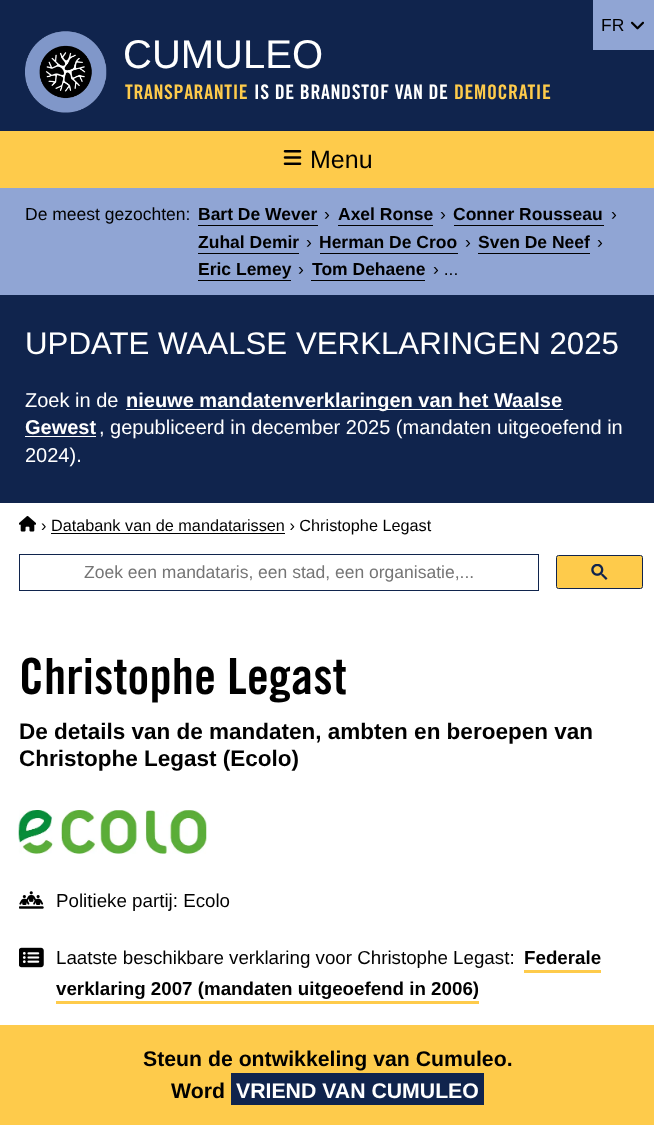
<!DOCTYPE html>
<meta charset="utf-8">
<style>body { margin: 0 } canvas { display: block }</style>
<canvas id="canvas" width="654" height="1125"></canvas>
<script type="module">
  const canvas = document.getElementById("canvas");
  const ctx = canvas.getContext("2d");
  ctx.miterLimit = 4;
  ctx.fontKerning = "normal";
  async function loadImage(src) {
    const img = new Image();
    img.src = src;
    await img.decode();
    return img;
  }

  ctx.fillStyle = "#ffffff";
  ctx.fillRect(0, 0, 654, 1125);
  ctx.fillStyle = "#10244d";
  ctx.fillRect(0, 0, 654, 131);
  ctx.fillStyle = "#90a5d4";
  ctx.fillRect(593, 0, 61, 50);
  ctx.font = "17.5px Liberation Sans";
  ctx.fillStyle = "#000000";
  ctx.fillText("FR", 601, 31);
  ctx.drawImage(await loadImage("img1.png"), 630, 21, 14, 9);
  ctx.drawImage(await loadImage("img2.png"), 25, 31, 82, 82);
  ctx.font = "40px Liberation Sans";
  ctx.fillStyle = "#ffffff";
  ctx.fillText("CUMULEO", 123, 68);
  ctx.letterSpacing = "0.6px";
  ctx.font = "bold 20px Trade Gothic";
  ctx.fillStyle = "#fecb4b";
  ctx.fillText("TRANSPARANTIE", 125, 99);
  ctx.fillStyle = "#ffffff";
  ctx.fillText("IS DE BRANDSTOF VAN DE", 254, 99);
  ctx.fillStyle = "#fecb4b";
  ctx.fillText("DEMOCRATIE", 454, 99);
  ctx.fillRect(0, 131, 654, 57);
  ctx.drawImage(await loadImage("img3.png"), 283, 150, 19, 15);
  ctx.letterSpacing = "0px";
  ctx.font = "25px Liberation Sans";
  ctx.fillStyle = "#000000";
  ctx.fillText("Menu", 310, 168);
  ctx.fillStyle = "#90a5d4";
  ctx.fillRect(0, 188, 654, 107);
  ctx.font = "17.5px Liberation Sans";
  ctx.fillStyle = "#000000";
  ctx.fillText("De meest gezochten:", 25, 220);
  ctx.font = "bold 17.5px Liberation Sans";
  ctx.fillText("Bart De Wever", 198, 220);
  ctx.fillRect(198, 225, 120, 1);
  ctx.font = "17.5px Liberation Sans";
  ctx.fillText("›", 324, 220);
  ctx.font = "bold 17.5px Liberation Sans";
  ctx.fillText("Axel Ronse", 338, 220);
  ctx.fillRect(338, 225, 95, 1);
  ctx.font = "17.5px Liberation Sans";
  ctx.fillText("›", 440, 220);
  ctx.font = "bold 17.5px Liberation Sans";
  ctx.fillText("Conner Rousseau", 453, 220);
  ctx.fillRect(454, 225, 150, 1);
  ctx.font = "17.5px Liberation Sans";
  ctx.fillText("›", 611, 220);
  ctx.font = "bold 17.5px Liberation Sans";
  ctx.fillText("Zuhal Demir", 198, 248);
  ctx.fillRect(198, 253, 101, 1);
  ctx.font = "17.5px Liberation Sans";
  ctx.fillText("›", 306, 248);
  ctx.font = "bold 17.5px Liberation Sans";
  ctx.fillText("Herman De Croo", 319, 248);
  ctx.fillRect(320, 253, 138, 1);
  ctx.font = "17.5px Liberation Sans";
  ctx.fillText("›", 465, 248);
  ctx.font = "bold 17.5px Liberation Sans";
  ctx.fillText("Sven De Neef", 478, 248);
  ctx.fillRect(478, 253, 112, 1);
  ctx.font = "17.5px Liberation Sans";
  ctx.fillText("›", 597, 248);
  ctx.font = "bold 17.5px Liberation Sans";
  ctx.fillText("Eric Lemey", 198, 275);
  ctx.fillRect(198, 280, 93, 1);
  ctx.font = "17.5px Liberation Sans";
  ctx.fillText("›", 298, 275);
  ctx.font = "bold 17.5px Liberation Sans";
  ctx.fillText("Tom Dehaene", 312, 275);
  ctx.fillRect(311, 280, 114, 1);
  ctx.font = "17.5px Liberation Sans";
  ctx.fillText("› ...", 433, 275);
  ctx.fillStyle = "#10244d";
  ctx.fillRect(0, 295, 654, 208);
  ctx.font = "31.25px Liberation Sans";
  ctx.fillStyle = "#ffffff";
  ctx.fillText("UPDATE WAALSE VERKLARINGEN 2025", 25, 354);
  ctx.font = "20px Liberation Sans";
  ctx.fillText("Zoek in de", 25, 407);
  ctx.fillRect(126, 409, 437, 1);
  ctx.font = "bold 20px Liberation Sans";
  ctx.fillText("nieuwe mandatenverklaringen van het Waalse", 126, 407);
  ctx.fillText("Gewest", 25, 434);
  ctx.fillRect(25, 436, 71, 1);
  ctx.font = "20px Liberation Sans";
  ctx.fillText(", gepubliceerd in december 2025 (mandaten uitgeoefend in", 99, 434);
  ctx.fillText("2024).", 25, 462);
  ctx.drawImage(await loadImage("img4.png"), 19, 516, 17, 16);
  ctx.font = "16.25px Liberation Sans";
  ctx.fillStyle = "#000000";
  ctx.fillText("› Databank van de mandatarissen › Christophe Legast", 41, 531);
  ctx.fillRect(51, 533, 234, 1);
  ctx.strokeStyle = "#10244d";
  ctx.strokeRect(19.5, 554.5, 519, 36);
  ctx.font = "17.5px Liberation Sans";
  ctx.fillStyle = "#757575";
  ctx.fillText("Zoek een mandataris, een stad, een organisatie,...", 84, 578);
  ctx.fillStyle = "#fecb4b";
  ctx.beginPath();
  ctx.roundRect(556.5, 555.5, 86, 33, 2);
  ctx.fill();
  ctx.stroke();
  ctx.drawImage(await loadImage("img5.png"), 591, 564, 17, 16);
  ctx.font = "bold 50px Trade Gothic";
  ctx.fillStyle = "#000000";
  ctx.fillText("Christophe Legast", 19, 694);
  ctx.font = "bold 22.5px Liberation Sans";
  ctx.fillText("De details van de mandaten, ambten en beroepen van", 19, 739);
  ctx.fillText("Christophe Legast (Ecolo)", 19, 766);
  ctx.drawImage(await loadImage("img6.png"), 18, 810, 189, 44);
  ctx.drawImage(await loadImage("img7.png"), 19, 891, 25, 18);
  ctx.font = "18.75px Liberation Sans";
  ctx.fillText("Politieke partij: Ecolo", 56, 907);
  ctx.drawImage(await loadImage("img8.png"), 19, 947, 25, 21);
  ctx.fillText("Laatste beschikbare verklaring voor Christophe Legast:", 56, 964);
  ctx.font = "bold 18.75px Liberation Sans";
  ctx.fillText("Federale", 524, 964);
  ctx.fillStyle = "#fecb4b";
  ctx.fillRect(524, 970, 77, 3);
  ctx.fillStyle = "#000000";
  ctx.fillText("verklaring 2007 (mandaten uitgeoefend in 2006)", 56, 995);
  ctx.fillStyle = "#fecb4b";
  ctx.fillRect(56, 1001, 423, 3);
  ctx.fillRect(0, 1025, 654, 100);
  ctx.font = "bold 21.25px Liberation Sans";
  ctx.fillStyle = "#000000";
  ctx.fillText("Steun de ontwikkeling van Cumuleo.", 143, 1066);
  ctx.fillText("Word", 171, 1098);
  ctx.fillStyle = "#10244d";
  ctx.fillRect(231, 1073, 253, 32);
  ctx.fillStyle = "#ffffff";
  ctx.fillText("VRIEND VAN CUMULEO", 236, 1098);
</script>
